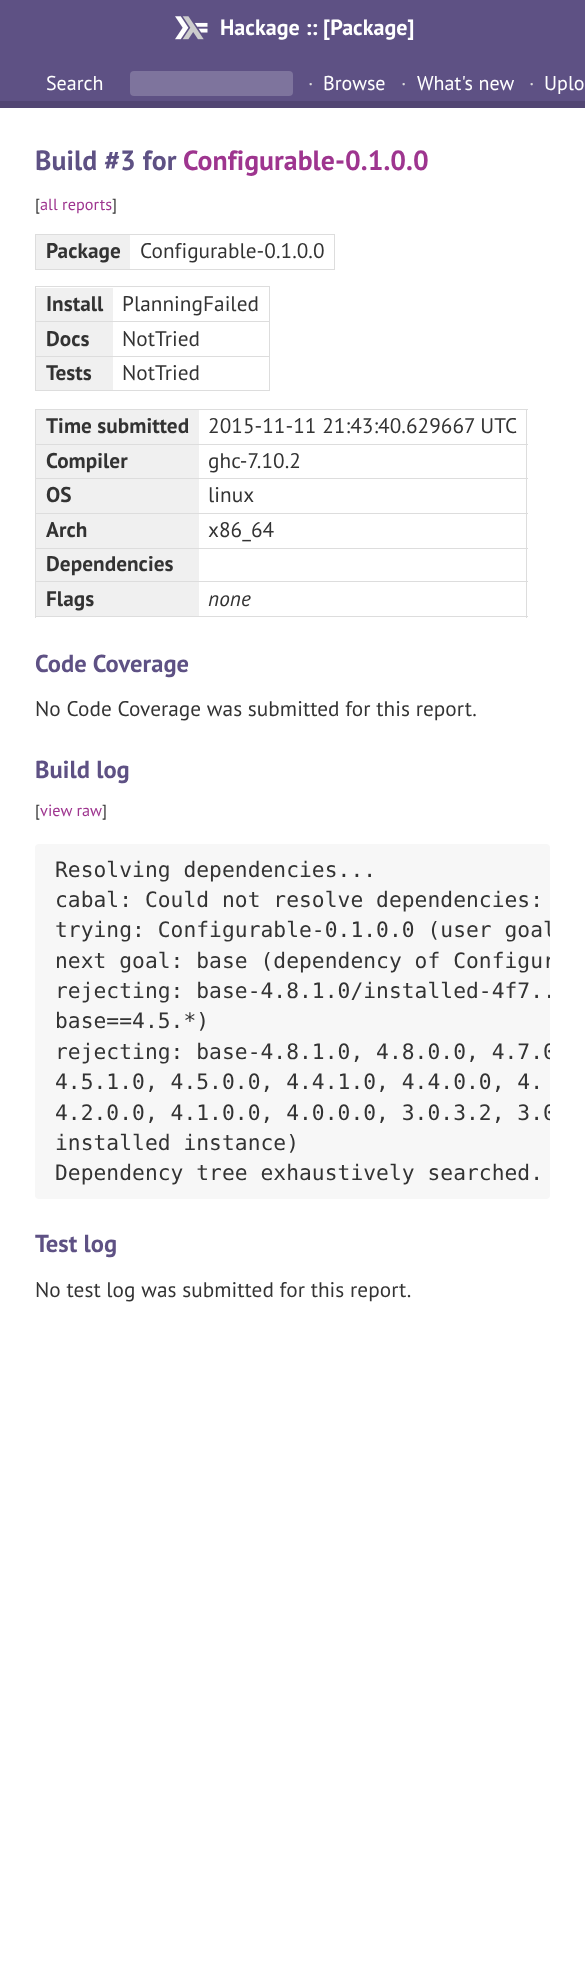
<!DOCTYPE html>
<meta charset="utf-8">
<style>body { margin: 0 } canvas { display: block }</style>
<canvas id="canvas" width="585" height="1978"></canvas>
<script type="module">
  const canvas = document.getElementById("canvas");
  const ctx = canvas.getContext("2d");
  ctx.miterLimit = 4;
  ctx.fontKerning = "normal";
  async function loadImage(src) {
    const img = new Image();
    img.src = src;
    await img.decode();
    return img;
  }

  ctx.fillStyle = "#ffffff";
  ctx.fillRect(0, 0, 585, 1978);
  ctx.fillStyle = "#5e5184";
  ctx.fillRect(0, 0, 585, 101);
  ctx.fillStyle = "#524673";
  ctx.fillRect(0, 101, 585, 7);
  ctx.drawImage(await loadImage("img1.png"), 175, 16, 33, 24);
  ctx.letterSpacing = "0.05px";
  ctx.font = "bold 22px PT Sans";
  ctx.fillStyle = "#ffffff";
  ctx.fillText("Hackage :: [Package]", 220, 35);
  ctx.letterSpacing = "0px";
  ctx.font = "20px PT Sans";
  ctx.fillText("Search", 46, 90);
  ctx.fillStyle = "#7e749d";
  ctx.beginPath();
  ctx.roundRect(130, 71, 163, 25, 4);
  ctx.fill();
  ctx.letterSpacing = "0.05px";
  ctx.fillStyle = "#dddddd";
  ctx.fillText("·", 308, 90);
  ctx.fillStyle = "#ffffff";
  ctx.fillText("Browse", 323, 90);
  ctx.fillStyle = "#dddddd";
  ctx.fillText("·", 401, 90);
  ctx.fillStyle = "#ffffff";
  ctx.fillText("What's new", 417, 90);
  ctx.fillStyle = "#dddddd";
  ctx.fillText("·", 529, 90);
  ctx.fillStyle = "#ffffff";
  ctx.fillText("Uplo", 544, 90);
  ctx.font = "bold 27.75px PT Sans";
  ctx.fillStyle = "#5e5184";
  ctx.fillText("Build #3 for", 35, 170);
  ctx.fillStyle = "#9e358f";
  ctx.fillText("Configurable-0.1.0.0", 183, 170);
  ctx.font = "16.25px PT Sans";
  ctx.fillStyle = "#333333";
  ctx.fillText("[", 35, 210);
  ctx.fillStyle = "#9e358f";
  ctx.fillText("all reports", 40, 210);
  ctx.fillStyle = "#333333";
  ctx.fillText("]", 112, 210);
  ctx.fillStyle = "#dddddd";
  ctx.fillRect(35, 234, 300, 1);
  ctx.fillRect(334, 234, 1, 36);
  ctx.fillRect(35, 269, 300, 1);
  ctx.fillRect(35, 234, 1, 36);
  ctx.fillStyle = "#f0f0f0";
  ctx.fillRect(36, 235, 94, 34);
  ctx.font = "bold 21.25px PT Sans";
  ctx.fillStyle = "#333333";
  ctx.fillText("Package", 46, 258);
  ctx.font = "21.25px PT Sans";
  ctx.fillText("Configurable-0.1.0.0", 140, 258);
  ctx.fillStyle = "#dddddd";
  ctx.fillRect(35, 286, 235, 1);
  ctx.fillRect(269, 286, 1, 105);
  ctx.fillRect(35, 390, 235, 1);
  ctx.fillRect(35, 286, 1, 105);
  ctx.fillStyle = "#f0f0f0";
  ctx.fillRect(36, 288, 77, 33);
  ctx.font = "bold 21.25px PT Sans";
  ctx.fillStyle = "#333333";
  ctx.fillText("Install", 46, 311);
  ctx.font = "21.25px PT Sans";
  ctx.fillText("PlanningFailed", 122, 311);
  ctx.fillStyle = "#dddddd";
  ctx.fillRect(35, 321, 235, 1);
  ctx.fillStyle = "#f0f0f0";
  ctx.fillRect(36, 322, 77, 34);
  ctx.font = "bold 21.25px PT Sans";
  ctx.fillStyle = "#333333";
  ctx.fillText("Docs", 46, 346);
  ctx.font = "21.25px PT Sans";
  ctx.fillText("NotTried", 122, 346);
  ctx.fillStyle = "#dddddd";
  ctx.fillRect(35, 356, 235, 1);
  ctx.fillStyle = "#f0f0f0";
  ctx.fillRect(36, 357, 77, 33);
  ctx.font = "bold 21.25px PT Sans";
  ctx.fillStyle = "#333333";
  ctx.fillText("Tests", 46, 380);
  ctx.font = "21.25px PT Sans";
  ctx.fillText("NotTried", 122, 380);
  ctx.fillStyle = "#dddddd";
  ctx.fillRect(35, 409, 493, 1);
  ctx.fillRect(526, 409, 1, 209);
  ctx.fillRect(35, 616, 493, 1);
  ctx.fillRect(35, 409, 1, 209);
  ctx.fillStyle = "#f0f0f0";
  ctx.fillRect(36, 410, 163, 34);
  ctx.font = "bold 21.25px PT Sans";
  ctx.fillStyle = "#333333";
  ctx.fillText("Time submitted", 46, 433);
  ctx.font = "21.25px PT Sans";
  ctx.fillText("2015-11-11 21:43:40.629667 UTC", 208, 433);
  ctx.fillStyle = "#dddddd";
  ctx.fillRect(35, 444, 493, 1);
  ctx.fillStyle = "#f0f0f0";
  ctx.fillRect(36, 445, 163, 33);
  ctx.font = "bold 21.25px PT Sans";
  ctx.fillStyle = "#333333";
  ctx.fillText("Compiler", 46, 468);
  ctx.font = "21.25px PT Sans";
  ctx.fillText("ghc-7.10.2", 208, 468);
  ctx.fillStyle = "#dddddd";
  ctx.fillRect(35, 478, 493, 1);
  ctx.fillStyle = "#f0f0f0";
  ctx.fillRect(36, 479, 163, 34);
  ctx.font = "bold 21.25px PT Sans";
  ctx.fillStyle = "#333333";
  ctx.fillText("OS", 46, 502);
  ctx.font = "21.25px PT Sans";
  ctx.fillText("linux", 208, 502);
  ctx.fillStyle = "#dddddd";
  ctx.fillRect(35, 513, 493, 1);
  ctx.fillStyle = "#f0f0f0";
  ctx.fillRect(36, 514, 163, 34);
  ctx.font = "bold 21.25px PT Sans";
  ctx.fillStyle = "#333333";
  ctx.fillText("Arch", 46, 537);
  ctx.font = "21.25px PT Sans";
  ctx.fillText("x86_64", 208, 537);
  ctx.fillStyle = "#dddddd";
  ctx.fillRect(35, 548, 493, 1);
  ctx.fillStyle = "#f0f0f0";
  ctx.fillRect(36, 549, 163, 67);
  ctx.font = "bold 21.25px PT Sans";
  ctx.fillStyle = "#333333";
  ctx.fillText("Dependencies", 46, 571);
  ctx.fillStyle = "#dddddd";
  ctx.fillRect(35, 581, 493, 1);
  ctx.fillStyle = "#333333";
  ctx.fillText("Flags", 46, 606);
  ctx.font = "italic 21.25px PT Sans";
  ctx.fillText("none", 208, 606);
  ctx.font = "bold 24.5px PT Sans";
  ctx.fillStyle = "#5e5184";
  ctx.fillText("Code Coverage", 35, 672);
  ctx.font = "21.25px PT Sans";
  ctx.fillStyle = "#333333";
  ctx.fillText("No Code Coverage was submitted for this report.", 35, 716);
  ctx.font = "bold 24.5px PT Sans";
  ctx.fillStyle = "#5e5184";
  ctx.fillText("Build log", 35, 778);
  ctx.font = "16.25px PT Sans";
  ctx.fillStyle = "#333333";
  ctx.fillText("[", 35, 816);
  ctx.fillStyle = "#9e358f";
  ctx.fillText("view raw", 40, 816);
  ctx.fillStyle = "#333333";
  ctx.fillText("]", 102, 816);
  ctx.fillStyle = "#f7f7f7";
  ctx.beginPath();
  ctx.roundRect(35, 844, 515, 355, 4);
  ctx.fill();
  ctx.font = "21.25px DejaVu Sans Mono";
  ctx.fillStyle = "#333333";
  ctx.fillText("Resolving dependencies...", 55, 877);
  ctx.fillText("cabal: Could not resolve dependencies:", 55, 907);
  ctx.save();
  ctx.beginPath();
  ctx.roundRect(35, 844, 515, 355, 4);
  ctx.clip();
  ctx.fillText("trying: Configurable-0.1.0.0 (user goal", 55, 937);
  ctx.fillText("next goal: base (dependency of Configur", 55, 968);
  ctx.fillText("rejecting: base-4.8.1.0/installed-4f7..", 55, 998);
  ctx.restore();
  ctx.fillText("base==4.5.*)", 55, 1028);
  ctx.save();
  ctx.beginPath();
  ctx.roundRect(35, 844, 515, 355, 4);
  ctx.clip();
  ctx.fillText("rejecting: base-4.8.1.0, 4.8.0.0, 4.7.0", 55, 1059);
  ctx.restore();
  ctx.fillText("4.5.1.0, 4.5.0.0, 4.4.1.0, 4.4.0.0, 4.", 55, 1089);
  ctx.save();
  ctx.beginPath();
  ctx.roundRect(35, 844, 515, 355, 4);
  ctx.clip();
  ctx.fillText("4.2.0.0, 4.1.0.0, 4.0.0.0, 3.0.3.2, 3.0", 55, 1120);
  ctx.restore();
  ctx.fillText("installed instance)", 55, 1150);
  ctx.fillText("Dependency tree exhaustively searched.", 55, 1180);
  ctx.font = "bold 24.5px PT Sans";
  ctx.fillStyle = "#5e5184";
  ctx.fillText("Test log", 35, 1252);
  ctx.font = "21.25px PT Sans";
  ctx.fillStyle = "#333333";
  ctx.fillText("No test log was submitted for this report.", 35, 1297);
</script>
